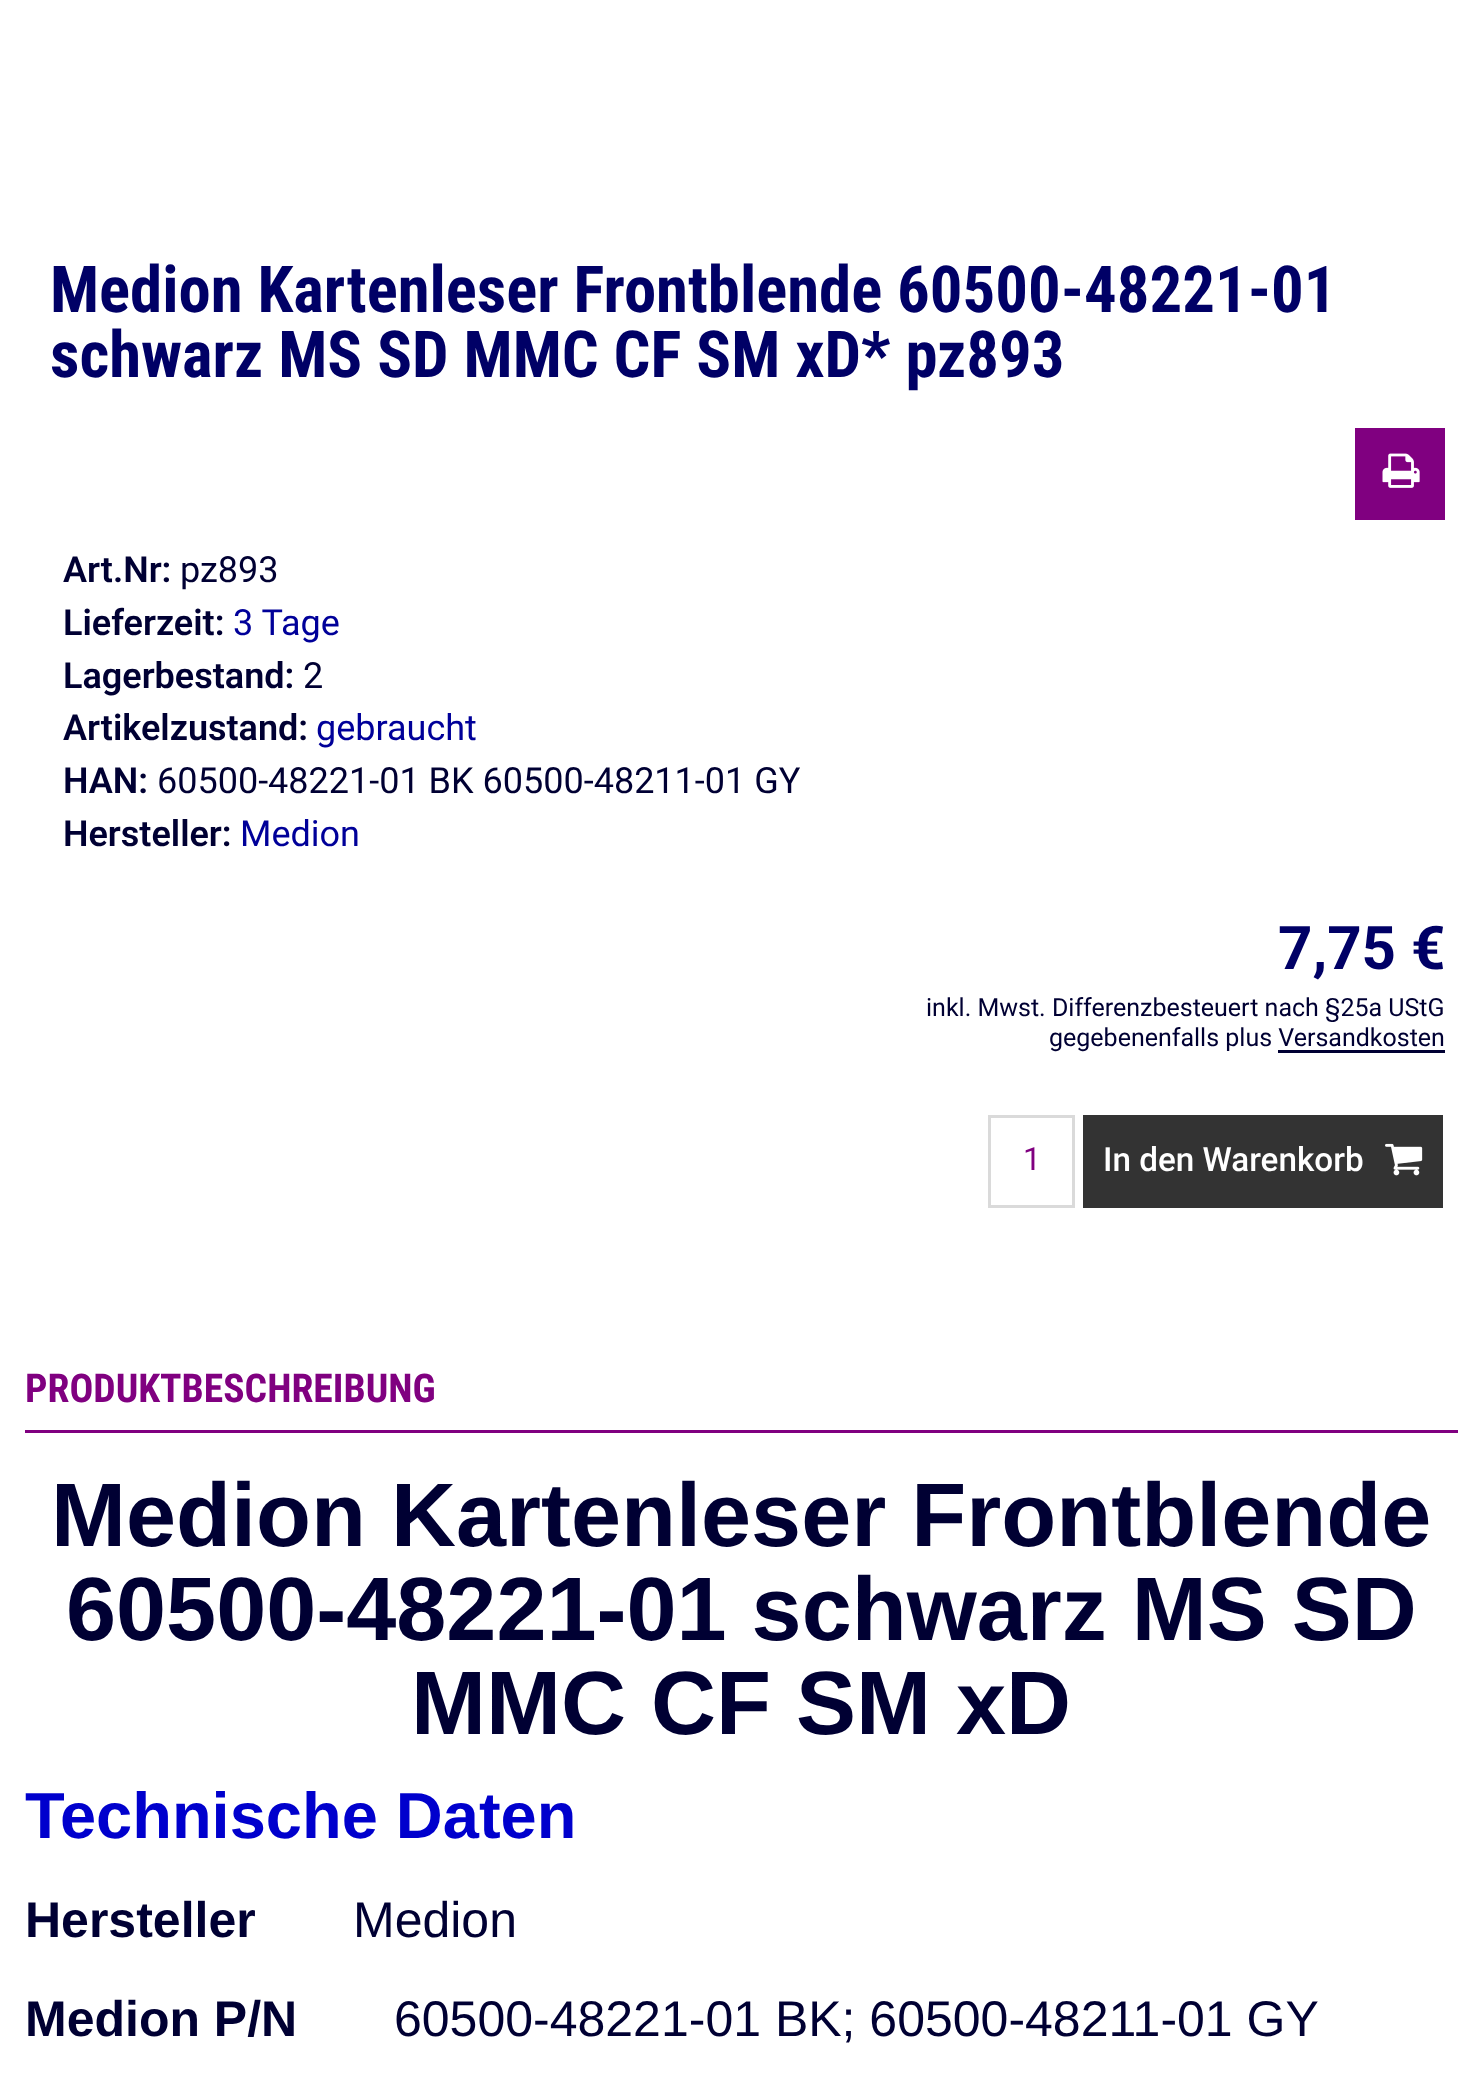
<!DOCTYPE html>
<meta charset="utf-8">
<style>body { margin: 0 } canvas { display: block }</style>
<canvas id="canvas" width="1482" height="2079"></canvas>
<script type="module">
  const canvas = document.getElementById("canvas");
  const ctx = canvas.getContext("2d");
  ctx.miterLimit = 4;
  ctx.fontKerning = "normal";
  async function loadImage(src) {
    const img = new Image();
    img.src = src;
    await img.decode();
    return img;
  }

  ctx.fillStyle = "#ffffff";
  ctx.fillRect(0, 0, 1482, 2079);
  ctx.font = "bold 64.75px Roboto Condensed";
  ctx.fillStyle = "#000066";
  ctx.fillText("Medion Kartenleser Frontblende 60500-48221-01", 50, 312);
  ctx.fillText("schwarz MS SD MMC CF SM xD* pz893", 50, 377);
  ctx.fillStyle = "#800080";
  ctx.fillRect(1355, 428, 90, 92);
  ctx.drawImage(await loadImage("img1.png"), 1382, 453, 38, 35);
  ctx.font = "600 36px Roboto";
  ctx.fillStyle = "#000033";
  ctx.fillText("Art.Nr:", 63, 582);
  ctx.font = "36px Roboto";
  ctx.fillText("pz893", 180, 582);
  ctx.font = "600 36px Roboto";
  ctx.fillText("Lieferzeit:", 63, 635);
  ctx.font = "36px Roboto";
  ctx.fillStyle = "#000099";
  ctx.fillText("3 Tage", 233, 635);
  ctx.font = "600 36px Roboto";
  ctx.fillStyle = "#000033";
  ctx.fillText("Lagerbestand:", 63, 688);
  ctx.font = "36px Roboto";
  ctx.fillText("2", 303, 688);
  ctx.font = "600 36px Roboto";
  ctx.fillText("Artikelzustand:", 63, 740);
  ctx.font = "36px Roboto";
  ctx.fillStyle = "#000099";
  ctx.fillText("gebraucht", 316, 740);
  ctx.font = "600 36px Roboto";
  ctx.fillStyle = "#000033";
  ctx.fillText("HAN:", 63, 793);
  ctx.font = "36px Roboto";
  ctx.fillText("60500-48221-01 BK 60500-48211-01 GY", 157, 793);
  ctx.font = "600 36px Roboto";
  ctx.fillText("Hersteller:", 63, 846);
  ctx.font = "36px Roboto";
  ctx.fillStyle = "#000099";
  ctx.fillText("Medion", 240, 846);
  ctx.font = "bold 60px Roboto";
  ctx.fillStyle = "#000066";
  ctx.fillText("7,75 €", 1278, 969);
  ctx.font = "25px Roboto";
  ctx.fillStyle = "#000033";
  ctx.fillText("inkl. Mwst. Differenzbesteuert nach §25a UStG", 926, 1016);
  ctx.fillText("gegebenenfalls plus Versandkosten", 1049, 1046);
  ctx.fillRect(1278, 1050, 167, 3);
  ctx.strokeStyle = "#dadada";
  ctx.lineWidth = 3;
  ctx.strokeRect(989.5, 1116.5, 84, 90);
  ctx.font = "32px Roboto";
  ctx.fillStyle = "#800080";
  ctx.fillText("1", 1023, 1170);
  ctx.fillStyle = "#333333";
  ctx.fillRect(1083, 1115, 360, 93);
  ctx.font = "500 33.25px Roboto";
  ctx.fillStyle = "#ffffff";
  ctx.fillText("In den Warenkorb", 1103, 1171);
  ctx.drawImage(await loadImage("img2.png"), 1385, 1143, 38, 33);
  ctx.fillStyle = "#800080";
  ctx.fillRect(25, 1430, 1433, 3);
  ctx.font = "bold 39.6px Roboto Condensed";
  ctx.fillText("PRODUKTBESCHREIBUNG", 25, 1402);
  ctx.font = "bold 90px Liberation Sans";
  ctx.fillStyle = "#000033";
  ctx.fillText("Medion Kartenleser Frontblende", 51, 1546);
  ctx.fillText("60500-48221-01 schwarz MS SD", 66, 1640);
  ctx.fillText("MMC CF SM xD", 411, 1734);
  ctx.font = "bold 65px Liberation Sans";
  ctx.fillStyle = "#0000cd";
  ctx.fillText("Technische Daten", 25, 1838);
  ctx.font = "bold 50px Liberation Sans";
  ctx.fillStyle = "#000033";
  ctx.fillText("Hersteller", 25, 1937);
  ctx.font = "50px Liberation Sans";
  ctx.fillText("Medion", 353, 1937);
  ctx.font = "bold 50px Liberation Sans";
  ctx.fillText("Medion P/N", 25, 2036);
  ctx.font = "50px Liberation Sans";
  ctx.fillText("60500-48221-01 BK; 60500-48211-01 GY", 394, 2036);
</script>
